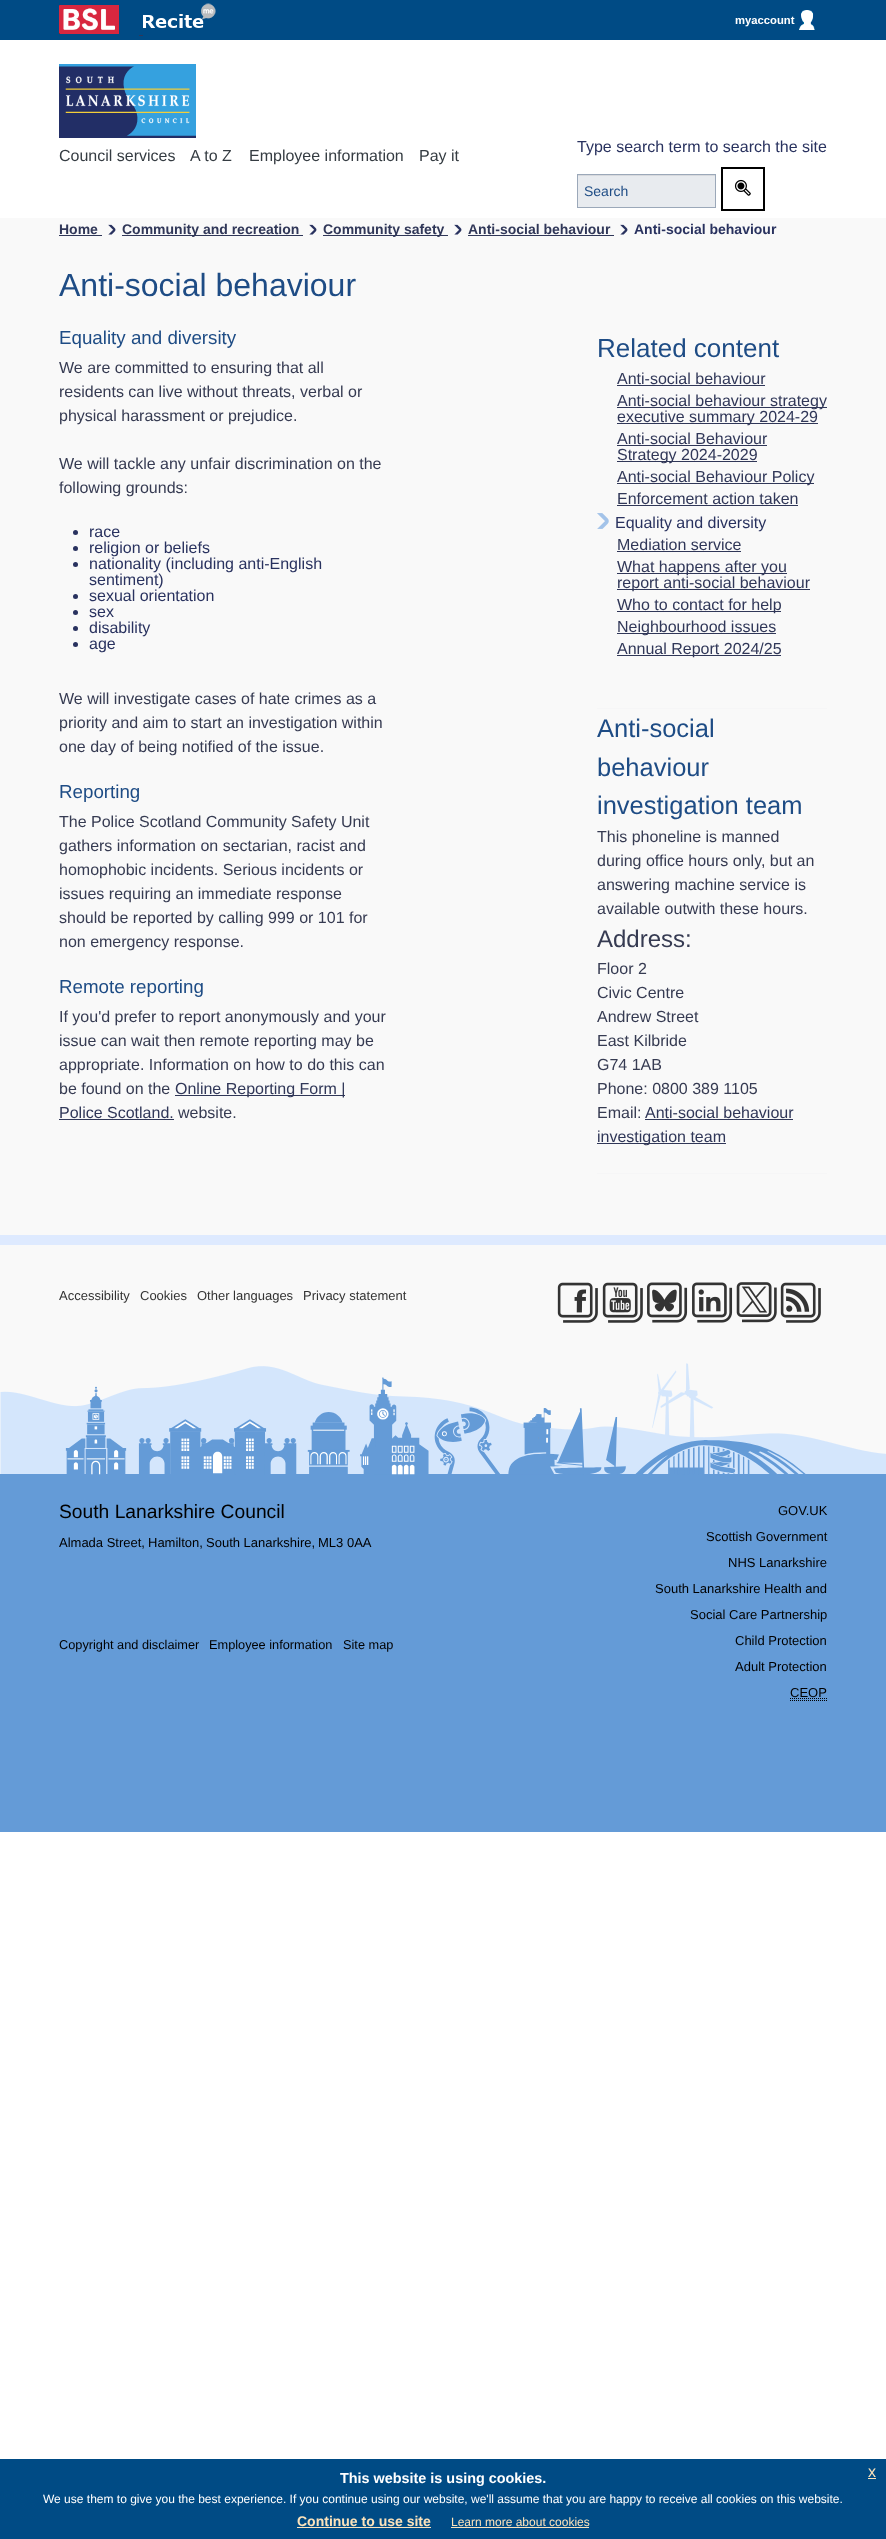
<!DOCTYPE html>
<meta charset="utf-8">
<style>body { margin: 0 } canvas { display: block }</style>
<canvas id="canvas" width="886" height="2539"></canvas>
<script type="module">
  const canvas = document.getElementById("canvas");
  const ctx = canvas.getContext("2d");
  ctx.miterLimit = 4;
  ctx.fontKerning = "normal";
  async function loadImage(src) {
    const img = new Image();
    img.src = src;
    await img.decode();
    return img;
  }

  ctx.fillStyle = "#ffffff";
  ctx.fillRect(0, 0, 886, 2539);
  ctx.fillStyle = "#f9f9f9";
  ctx.fillRect(0, 218, 886, 1017);
  ctx.fillStyle = "#004b85";
  ctx.fillRect(0, 0, 886, 40);
  ctx.drawImage(await loadImage("img1.png"), 59, 5, 60, 29);
  ctx.drawImage(await loadImage("img2.png"), 143, 3, 73, 25);
  ctx.font = "bold 11.25px Liberation Sans";
  ctx.fillStyle = "#ffffff";
  ctx.fillText("myaccount", 735, 24);
  ctx.drawImage(await loadImage("img3.png"), 799, 10, 16, 20);
  ctx.fillStyle = "#303758";
  ctx.fillRect(139, 35, 4, 1);
  ctx.drawImage(await loadImage("img4.png"), 59, 64, 137, 74);
  ctx.font = "16px Liberation Sans";
  ctx.fillStyle = "#353c42";
  ctx.fillText("Council services", 59, 161);
  ctx.fillText("A to Z", 190, 161);
  ctx.fillText("Employee information", 249, 161);
  ctx.fillText("Pay it", 419, 161);
  ctx.fillStyle = "#29325f";
  ctx.fillText("Type search term to search the site", 577, 152);
  ctx.fillStyle = "#e8ebef";
  ctx.fillRect(578, 176, 137, 31);
  ctx.fillStyle = "#d7d9dd";
  ctx.fillRect(578, 175, 137, 1);
  ctx.strokeStyle = "#9ba8b9";
  ctx.strokeRect(577.5, 174.5, 138, 33);
  ctx.font = "14px Liberation Sans";
  ctx.fillStyle = "#1e4c85";
  ctx.fillText("Search", 584, 196);
  ctx.strokeStyle = "#000000";
  ctx.lineWidth = 2;
  ctx.strokeRect(722, 168, 42, 42);
  ctx.drawImage(await loadImage("img5.png"), 734, 179, 17, 17);
  ctx.font = "bold 14px Liberation Sans";
  ctx.fillStyle = "#303758";
  ctx.fillText("Home", 59, 234);
  ctx.fillRect(59, 235, 43, 1);
  ctx.drawImage(await loadImage("img6.png"), 108, 224, 8, 11);
  ctx.fillRect(122, 235, 181, 1);
  ctx.fillText("Community and recreation", 122, 234);
  ctx.drawImage(await loadImage("img6.png"), 309, 224, 8, 11);
  ctx.fillRect(323, 235, 125, 1);
  ctx.fillText("Community safety", 323, 234);
  ctx.drawImage(await loadImage("img6.png"), 454, 224, 8, 11);
  ctx.fillText("Anti-social behaviour", 468, 234);
  ctx.fillRect(468, 235, 146, 1);
  ctx.drawImage(await loadImage("img6.png"), 620, 224, 8, 11);
  ctx.fillStyle = "#29325f";
  ctx.fillText("Anti-social behaviour", 634, 234);
  ctx.font = "32px Liberation Sans";
  ctx.fillStyle = "#1e4c85";
  ctx.fillText("Anti-social behaviour", 59, 296);
  ctx.font = "18.75px Liberation Sans";
  ctx.fillText("Equality and diversity", 59, 344);
  ctx.font = "16px Liberation Sans";
  ctx.fillStyle = "#363b52";
  ctx.fillText("We are committed to ensuring that all", 59, 373);
  ctx.fillText("residents can live without threats, verbal or", 59, 397);
  ctx.fillText("physical harassment or prejudice.", 59, 421);
  ctx.fillText("We will tackle any unfair discrimination on the", 59, 469);
  ctx.fillText("following grounds:", 59, 493);
  ctx.fillStyle = "#29325f";
  ctx.beginPath();
  ctx.arc(75.5, 532.5, 2.5, 0, Math.PI * 2);
  ctx.fill();
  ctx.fillText("race", 89, 537);
  ctx.beginPath();
  ctx.arc(75.5, 548.5, 2.5, 0, Math.PI * 2);
  ctx.fill();
  ctx.fillText("religion or beliefs", 89, 553);
  ctx.beginPath();
  ctx.arc(75.5, 564.5, 2.5, 0, Math.PI * 2);
  ctx.fill();
  ctx.fillText("nationality (including anti-English", 89, 569);
  ctx.fillText("sentiment)", 89, 585);
  ctx.beginPath();
  ctx.arc(75.5, 596.5, 2.5, 0, Math.PI * 2);
  ctx.fill();
  ctx.fillText("sexual orientation", 89, 601);
  ctx.beginPath();
  ctx.arc(75.5, 612.5, 2.5, 0, Math.PI * 2);
  ctx.fill();
  ctx.fillText("sex", 89, 617);
  ctx.beginPath();
  ctx.arc(75.5, 628.5, 2.5, 0, Math.PI * 2);
  ctx.fill();
  ctx.fillText("disability", 89, 633);
  ctx.beginPath();
  ctx.arc(75.5, 644.5, 2.5, 0, Math.PI * 2);
  ctx.fill();
  ctx.fillText("age", 89, 649);
  ctx.fillStyle = "#363b52";
  ctx.fillText("We will investigate cases of hate crimes as a", 59, 704);
  ctx.fillText("priority and aim to start an investigation within", 59, 728);
  ctx.fillText("one day of being notified of the issue.", 59, 752);
  ctx.font = "18.75px Liberation Sans";
  ctx.fillStyle = "#1e4c85";
  ctx.fillText("Reporting", 59, 798);
  ctx.font = "16px Liberation Sans";
  ctx.fillStyle = "#363b52";
  ctx.fillText("The Police Scotland Community Safety Unit", 59, 827);
  ctx.fillText("gathers information on sectarian, racist and", 59, 851);
  ctx.fillText("homophobic incidents. Serious incidents or", 59, 875);
  ctx.fillText("issues requiring an immediate response", 59, 899);
  ctx.fillText("should be reported by calling 999 or 101 for", 59, 923);
  ctx.fillText("non emergency response.", 59, 947);
  ctx.font = "18.75px Liberation Sans";
  ctx.fillStyle = "#1e4c85";
  ctx.fillText("Remote reporting", 59, 993);
  ctx.font = "16px Liberation Sans";
  ctx.fillStyle = "#363b52";
  ctx.fillText("If you'd prefer to report anonymously and your", 59, 1022);
  ctx.fillText("issue can wait then remote reporting may be", 59, 1046);
  ctx.fillText("appropriate. Information on how to do this can", 59, 1070);
  ctx.fillText("be found on the", 59, 1094);
  ctx.fillStyle = "#303758";
  ctx.fillRect(175, 1095, 170, 1);
  ctx.fillText("Online Reporting Form |", 175, 1094);
  ctx.fillText("Police Scotland.", 59, 1118);
  ctx.fillRect(59, 1119, 115, 1);
  ctx.fillStyle = "#363b52";
  ctx.fillText("website.", 178, 1118);
  ctx.fillStyle = "#f6f6f7";
  ctx.fillRect(597, 708, 230, 1);
  ctx.font = "26px Liberation Sans";
  ctx.fillStyle = "#1e4c85";
  ctx.fillText("Related content", 597, 357);
  ctx.font = "16px Liberation Sans";
  ctx.fillStyle = "#303758";
  ctx.fillText("Anti-social behaviour", 617, 384);
  ctx.fillRect(617, 385, 148, 1);
  ctx.fillRect(617, 407, 210, 1);
  ctx.fillText("Anti-social behaviour strategy", 617, 406);
  ctx.fillRect(617, 423, 201, 1);
  ctx.fillText("executive summary 2024-29", 617, 422);
  ctx.fillText("Anti-social Behaviour", 617, 444);
  ctx.fillRect(617, 445, 150, 1);
  ctx.fillRect(617, 461, 140, 1);
  ctx.fillText("Strategy 2024-2029", 617, 460);
  ctx.fillRect(617, 483, 197, 1);
  ctx.fillText("Anti-social Behaviour Policy", 617, 482);
  ctx.fillText("Enforcement action taken", 617, 504);
  ctx.fillRect(617, 505, 181, 1);
  ctx.drawImage(await loadImage("img7.png"), 597, 513, 12, 16);
  ctx.fillStyle = "#29325f";
  ctx.fillText("Equality and diversity", 615, 528);
  ctx.fillStyle = "#303758";
  ctx.fillText("Mediation service", 617, 550);
  ctx.fillRect(617, 551, 124, 1);
  ctx.fillRect(617, 573, 170, 1);
  ctx.fillText("What happens after you", 617, 572);
  ctx.fillRect(617, 589, 193, 1);
  ctx.fillText("report anti-social behaviour", 617, 588);
  ctx.fillRect(617, 611, 164, 1);
  ctx.fillText("Who to contact for help", 617, 610);
  ctx.fillRect(617, 633, 159, 1);
  ctx.fillText("Neighbourhood issues", 617, 632);
  ctx.fillRect(617, 655, 164, 1);
  ctx.fillText("Annual Report 2024/25", 617, 654);
  ctx.fillStyle = "#f6f6f7";
  ctx.fillRect(597, 1173, 230, 1);
  ctx.font = "25.5px Liberation Sans";
  ctx.fillStyle = "#1e4c85";
  ctx.fillText("Anti-social", 597, 737);
  ctx.fillText("behaviour", 597, 776);
  ctx.fillText("investigation team", 597, 814);
  ctx.font = "16px Liberation Sans";
  ctx.fillStyle = "#363b52";
  ctx.fillText("This phoneline is manned", 597, 842);
  ctx.fillText("during office hours only, but an", 597, 866);
  ctx.fillText("answering machine service is", 597, 890);
  ctx.fillText("available outwith these hours.", 597, 914);
  ctx.font = "24px Liberation Sans";
  ctx.fillText("Address:", 597, 947);
  ctx.font = "16px Liberation Sans";
  ctx.fillText("Floor 2", 597, 974);
  ctx.fillText("Civic Centre", 597, 998);
  ctx.fillText("Andrew Street", 597, 1022);
  ctx.fillText("East Kilbride", 597, 1046);
  ctx.fillText("G74 1AB", 597, 1070);
  ctx.fillText("Phone: 0800 389 1105", 597, 1094);
  ctx.fillText("Email:", 597, 1118);
  ctx.fillStyle = "#303758";
  ctx.fillText("Anti-social behaviour", 645, 1118);
  ctx.fillRect(645, 1119, 148, 1);
  ctx.fillRect(597, 1143, 129, 1);
  ctx.fillText("investigation team", 597, 1142);
  ctx.fillStyle = "#649bd7";
  ctx.fillRect(0, 1474, 886, 358);
  ctx.fillStyle = "#deeaff";
  ctx.fillRect(0, 1235, 886, 10);
  ctx.fillStyle = "#f9f9f9";
  ctx.fillRect(0, 1245, 886, 229);
  ctx.drawImage(await loadImage("img8.png"), 0, 1363, 886, 111);
  ctx.font = "13px Liberation Sans";
  ctx.fillStyle = "#333333";
  ctx.fillText("Accessibility", 59, 1300);
  ctx.fillText("Cookies", 140, 1300);
  ctx.fillText("Other languages", 197, 1300);
  ctx.fillText("Privacy statement", 303, 1300);
  ctx.drawImage(await loadImage("img9.png"), 557, 1282, 41, 41);
  ctx.drawImage(await loadImage("img10.png"), 602, 1282, 41, 41);
  ctx.drawImage(await loadImage("img11.png"), 647, 1282, 41, 41);
  ctx.drawImage(await loadImage("img12.png"), 692, 1282, 41, 41);
  ctx.drawImage(await loadImage("img13.png"), 736, 1282, 41, 41);
  ctx.drawImage(await loadImage("img14.png"), 780, 1282, 41, 41);
  ctx.drawImage(await loadImage("img15.png"), 65, 1377, 741, 98);
  ctx.font = "19.25px Liberation Sans";
  ctx.fillStyle = "#000000";
  ctx.fillText("South Lanarkshire Council", 59, 1518);
  ctx.font = "13px Liberation Sans";
  ctx.fillText("Almada Street,", 59, 1547);
  ctx.fillText("Hamilton,", 148, 1547);
  ctx.fillText("South Lanarkshire,", 206, 1547);
  ctx.fillText("ML3 0AA", 318, 1547);
  ctx.font = "12.75px Liberation Sans";
  ctx.fillText("Copyright and disclaimer", 59, 1649);
  ctx.fillText("Employee information", 209, 1649);
  ctx.fillText("Site map", 343, 1649);
  ctx.font = "13px Liberation Sans";
  ctx.fillText("GOV.UK", 778, 1515);
  ctx.fillText("Scottish Government", 706, 1541);
  ctx.fillText("NHS Lanarkshire", 728, 1567);
  ctx.fillText("South Lanarkshire Health and", 655, 1593);
  ctx.fillText("Social Care Partnership", 690, 1619);
  ctx.fillText("Child Protection", 735, 1645);
  ctx.fillText("Adult Protection", 735, 1671);
  ctx.fillText("CEOP", 790, 1697);
  ctx.beginPath();
  ctx.moveTo(790, 1700.5);
  ctx.lineTo(827, 1700.5);
  ctx.moveTo(790, 1698.5);
  ctx.lineTo(827, 1698.5);
  ctx.lineWidth = 1;
  ctx.setLineDash([1, 1]);
  ctx.stroke();
  ctx.fillStyle = "#004b85";
  ctx.fillRect(0, 2459, 886, 80);
  ctx.font = "bold 14.4px Liberation Sans";
  ctx.fillStyle = "#ffffff";
  ctx.fillText("This website is using cookies.", 340, 2483);
  ctx.font = "16px Liberation Sans";
  ctx.fillStyle = "#fce3bb";
  ctx.fillText("x", 868, 2477);
  ctx.fillRect(868, 2478, 8, 1);
  ctx.font = "12px Liberation Sans";
  ctx.fillStyle = "#ffffff";
  ctx.fillText("We use them to give you the best experience. If you continue using our website, we'll assume that you are happy to receive all cookies on this website.", 43, 2503);
  ctx.font = "bold 14px Liberation Sans";
  ctx.fillStyle = "#fce3bb";
  ctx.fillText("Continue to use site", 297, 2526);
  ctx.fillRect(297, 2527, 134, 1);
  ctx.font = "12px Liberation Sans";
  ctx.fillText("Learn more about cookies", 451, 2526);
  ctx.fillRect(451, 2527, 138, 1);
</script>
